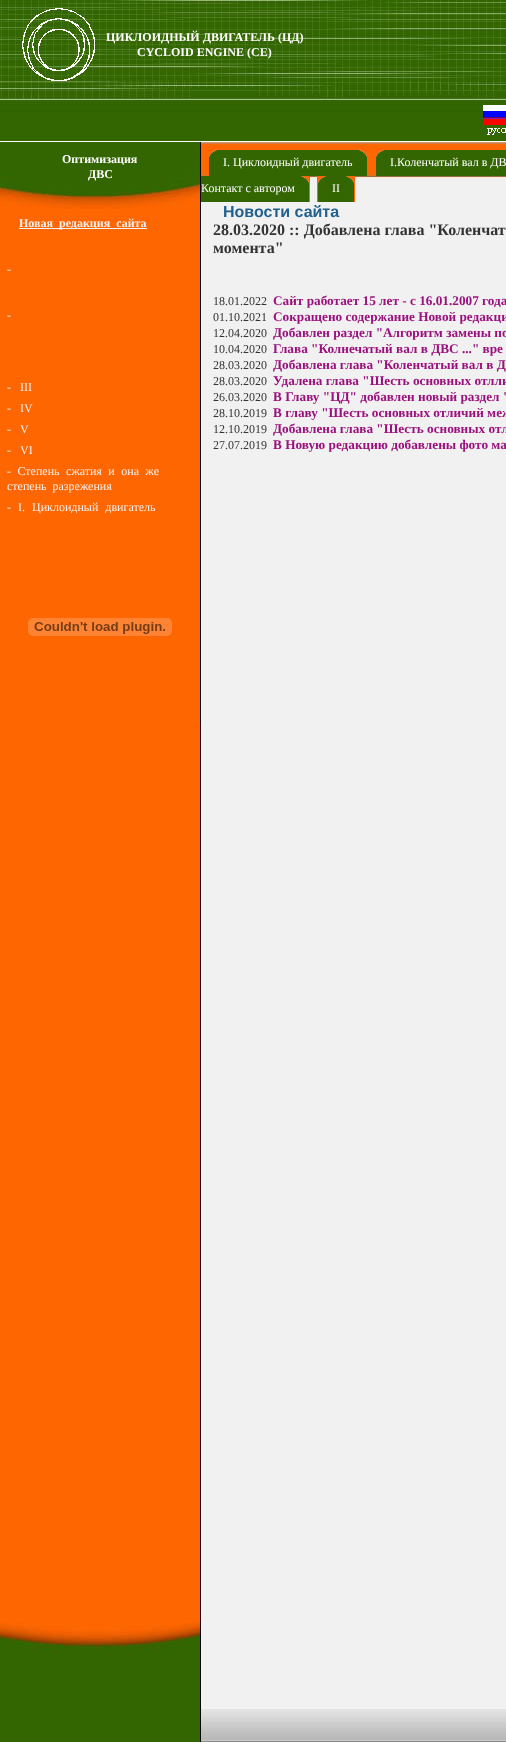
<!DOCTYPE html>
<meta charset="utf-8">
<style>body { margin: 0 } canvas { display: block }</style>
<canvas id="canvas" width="506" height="1742"></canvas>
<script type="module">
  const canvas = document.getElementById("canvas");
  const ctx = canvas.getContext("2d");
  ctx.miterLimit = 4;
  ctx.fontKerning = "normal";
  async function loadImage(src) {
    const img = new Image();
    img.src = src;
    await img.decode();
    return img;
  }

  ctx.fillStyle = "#f1f1f1";
  ctx.fillRect(0, 0, 506, 1742);
  ctx.drawImage(await loadImage("img1.png"), 0, 724, 201, 898);
  ctx.drawImage(await loadImage("img2.png"), 0, 104, 506, 37);
  ctx.fillStyle = "#ffffff";
  ctx.fillRect(0, 141, 506, 1);
  ctx.drawImage(await loadImage("img3.png"), 0, 0, 506, 104);
  ctx.drawImage(await loadImage("img4.png"), 22, 8, 73, 73);
  ctx.font = "bold 12px Liberation Serif";
  ctx.fillText("ЦИКЛОИДНЫЙ ДВИГАТЕЛЬ (ЦД)", 106, 41);
  ctx.fillText("CYCLOID ENGINE (CE)", 137, 56);
  ctx.drawImage(await loadImage("img5.png"), 483, 105, 23, 30);
  ctx.fillStyle = "#fe6601";
  ctx.fillRect(0, 209, 200, 515);
  ctx.fillStyle = "#000000";
  ctx.fillRect(200, 142, 1, 582);
  ctx.drawImage(await loadImage("img6.png"), 0, 142, 200, 67);
  ctx.fillStyle = "#ffffff";
  ctx.fillText("Оптимизация", 62, 163);
  ctx.fillText("ДВС", 88, 178);
  ctx.fillStyle = "#f1f1f1";
  ctx.fillRect(19, 228, 128, 1);
  ctx.wordSpacing = "3px";
  ctx.fillText("Новая редакция сайта", 19, 227);
  ctx.wordSpacing = "0px";
  ctx.font = "12px Liberation Serif";
  ctx.fillText("-", 7, 273);
  ctx.fillText("-", 7, 319);
  ctx.fillText("-", 7, 391);
  ctx.fillText("III", 20, 391);
  ctx.fillText("-", 7, 412);
  ctx.fillText("IV", 20, 412);
  ctx.fillText("-", 7, 433);
  ctx.fillText("V", 20, 433);
  ctx.fillText("-", 7, 454);
  ctx.fillText("VI", 20, 454);
  ctx.wordSpacing = "3.5px";
  ctx.fillText("- Степень сжатия и она же", 7, 475);
  ctx.wordSpacing = "3px";
  ctx.fillText("степень разрежения", 7, 490);
  ctx.wordSpacing = "4px";
  ctx.fillText("- I. Циклоидный двигатель", 7, 511);
  ctx.drawImage(await loadImage("img7.png"), 28, 618, 144, 18);
  ctx.drawImage(await loadImage("img8.png"), 201, 142, 305, 36);
  ctx.drawImage(await loadImage("img9.png"), 208, 150, 15, 26);
  ctx.fillStyle = "#336600";
  ctx.fillRect(223, 150, 130, 26);
  ctx.wordSpacing = "0px";
  ctx.fillStyle = "#ffffff";
  ctx.fillText("I. Циклоидный двигатель", 223, 166);
  ctx.drawImage(await loadImage("img10.png"), 353, 150, 15, 26);
  ctx.drawImage(await loadImage("img9.png"), 375, 150, 15, 26);
  ctx.fillStyle = "#336600";
  ctx.fillRect(390, 150, 116, 26);
  ctx.fillStyle = "#ffffff";
  ctx.fillText("I.Коленчатый вал в ДВ", 390, 166);
  ctx.fillStyle = "#336600";
  ctx.fillRect(201, 176, 94, 26);
  ctx.fillStyle = "#ffffff";
  ctx.fillText("Контакт с автором", 201, 192);
  ctx.drawImage(await loadImage("img10.png"), 295, 176, 15, 26);
  ctx.drawImage(await loadImage("img9.png"), 317, 176, 15, 26);
  ctx.fillStyle = "#336600";
  ctx.fillRect(332, 176, 8, 26);
  ctx.fillStyle = "#ffffff";
  ctx.fillText("II", 332, 192);
  ctx.drawImage(await loadImage("img10.png"), 340, 176, 15, 26);
  ctx.font = "bold 16px Liberation Sans";
  ctx.fillStyle = "#22608e";
  ctx.fillText("Новости сайта", 223, 217);
  ctx.font = "bold 16px Liberation Serif";
  ctx.fillStyle = "#333333";
  ctx.fillText("28.03.2020 :: Добавлена глава \"Коленчат", 213, 235);
  ctx.fillText("момента\"", 213, 253);
  ctx.font = "12px Liberation Serif";
  ctx.fillText("18.01.2022", 213, 305);
  ctx.font = "bold 13.25px Liberation Serif";
  ctx.fillStyle = "#9a107d";
  ctx.fillText("Сайт работает 15 лет - с 16.01.2007 года", 273, 305);
  ctx.font = "12px Liberation Serif";
  ctx.fillStyle = "#333333";
  ctx.fillText("01.10.2021", 213, 321);
  ctx.font = "bold 13.25px Liberation Serif";
  ctx.fillStyle = "#9a107d";
  ctx.fillText("Сокращено содержание Новой редакци", 273, 321);
  ctx.font = "12px Liberation Serif";
  ctx.fillStyle = "#333333";
  ctx.fillText("12.04.2020", 213, 337);
  ctx.font = "bold 13.25px Liberation Serif";
  ctx.fillStyle = "#9a107d";
  ctx.fillText("Добавлен раздел \"Алгоритм замены по", 273, 337);
  ctx.font = "12px Liberation Serif";
  ctx.fillStyle = "#333333";
  ctx.fillText("10.04.2020", 213, 353);
  ctx.font = "bold 13.25px Liberation Serif";
  ctx.fillStyle = "#9a107d";
  ctx.fillText("Глава \"Колнечатый вал в ДВС ...\" вре", 273, 353);
  ctx.font = "12px Liberation Serif";
  ctx.fillStyle = "#333333";
  ctx.fillText("28.03.2020", 213, 369);
  ctx.font = "bold 13.25px Liberation Serif";
  ctx.fillStyle = "#9a107d";
  ctx.fillText("Добавлена глава \"Коленчатый вал в Д", 273, 369);
  ctx.font = "12px Liberation Serif";
  ctx.fillStyle = "#333333";
  ctx.fillText("28.03.2020", 213, 385);
  ctx.font = "bold 13.25px Liberation Serif";
  ctx.fillStyle = "#9a107d";
  ctx.fillText("Удалена глава \"Шесть основных отлли", 273, 385);
  ctx.font = "12px Liberation Serif";
  ctx.fillStyle = "#333333";
  ctx.fillText("26.03.2020", 213, 401);
  ctx.font = "bold 13.25px Liberation Serif";
  ctx.fillStyle = "#9a107d";
  ctx.fillText("В Главу \"ЦД\" добавлен новый раздел \"", 273, 401);
  ctx.font = "12px Liberation Serif";
  ctx.fillStyle = "#333333";
  ctx.fillText("28.10.2019", 213, 417);
  ctx.font = "bold 13.25px Liberation Serif";
  ctx.fillStyle = "#9a107d";
  ctx.fillText("В главу \"Шесть основных отличий меж", 273, 417);
  ctx.font = "12px Liberation Serif";
  ctx.fillStyle = "#333333";
  ctx.fillText("12.10.2019", 213, 433);
  ctx.font = "bold 13.25px Liberation Serif";
  ctx.fillStyle = "#9a107d";
  ctx.fillText("Добавлена глава \"Шесть основных отл", 273, 433);
  ctx.font = "12px Liberation Serif";
  ctx.fillStyle = "#333333";
  ctx.fillText("27.07.2019", 213, 449);
  ctx.font = "bold 13.25px Liberation Serif";
  ctx.fillStyle = "#9a107d";
  ctx.fillText("В Новую редакцию добавлены фото ма", 273, 449);
  ctx.drawImage(await loadImage("img11.png"), 201, 1708, 305, 34);
  ctx.drawImage(await loadImage("img12.png"), 0, 1622, 200, 120);
  ctx.fillStyle = "#000000";
  ctx.fillRect(200, 1622, 1, 120);
</script>
